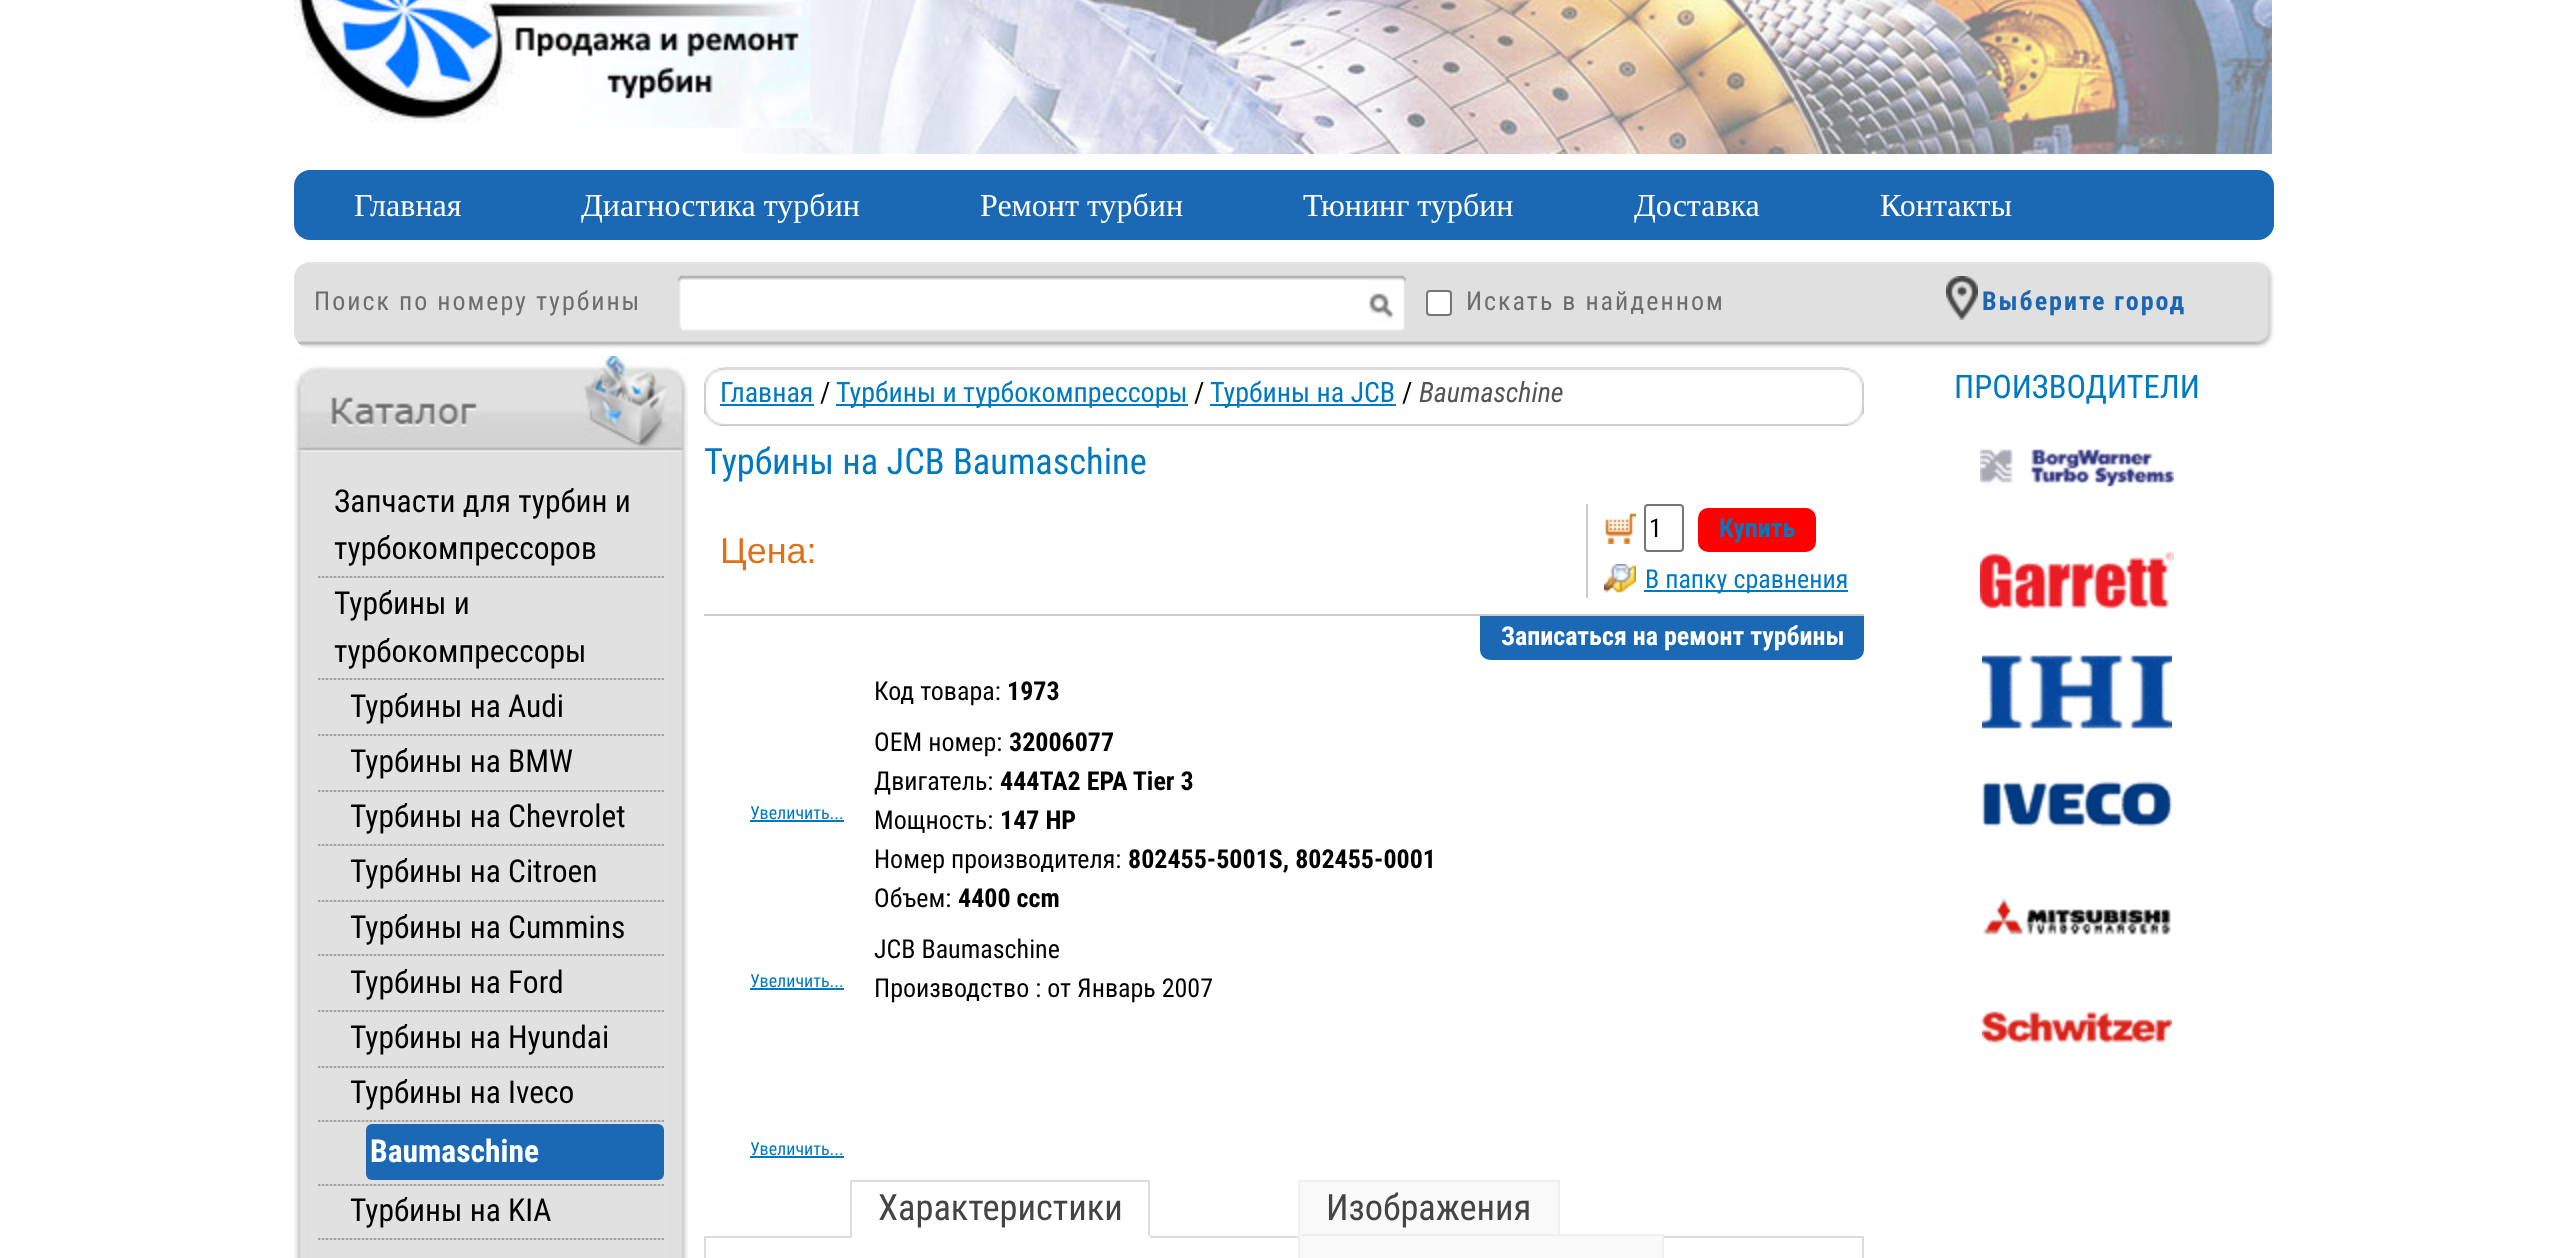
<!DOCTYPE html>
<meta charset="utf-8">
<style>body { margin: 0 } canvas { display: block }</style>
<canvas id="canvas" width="2568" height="1258"></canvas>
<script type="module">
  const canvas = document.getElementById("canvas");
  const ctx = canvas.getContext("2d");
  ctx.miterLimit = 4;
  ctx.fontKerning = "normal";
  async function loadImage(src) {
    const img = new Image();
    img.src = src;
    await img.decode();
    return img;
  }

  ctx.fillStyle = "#ffffff";
  ctx.fillRect(0, 0, 2568, 1258);
  ctx.drawImage(await loadImage("img1.png"), 742, 0, 1530, 154);
  ctx.drawImage(await loadImage("img2.png"), 294, 0, 516, 128);
  ctx.fillStyle = "#1b69b4";
  ctx.beginPath();
  ctx.roundRect(294, 170, 1980, 70, 16);
  ctx.fill();
  ctx.font = "32px Liberation Serif";
  ctx.fillStyle = "#ffffff";
  ctx.fillText("Главная", 354, 216);
  ctx.fillText("Диагностика турбин", 581, 216);
  ctx.fillText("Ремонт турбин", 980, 216);
  ctx.fillText("Тюнинг турбин", 1303, 216);
  ctx.fillText("Доставка", 1634, 216);
  ctx.fillText("Контакты", 1880, 216);
  ctx.drawImage(await loadImage("img3.png"), 294, 262, 1964, 86);
  ctx.letterSpacing = "2px";
  ctx.font = "26px Roboto Condensed";
  ctx.fillStyle = "#6d6d6d";
  ctx.fillText("Поиск по номеру турбины", 314, 310);
  ctx.drawImage(await loadImage("img4.png"), 677, 275, 5, 55);
  ctx.drawImage(await loadImage("img5.png"), 682, 275, 684, 56);
  ctx.fillStyle = "#ffffff";
  ctx.fillRect(682, 280, 684, 1);
  ctx.drawImage(await loadImage("img6.png"), 1366, 275, 34, 56);
  ctx.drawImage(await loadImage("img7.png"), 1400, 275, 6, 56);
  ctx.beginPath();
  ctx.roundRect(1427, 291, 24, 24, 3);
  ctx.fill();
  ctx.strokeStyle = "#767676";
  ctx.lineWidth = 2;
  ctx.stroke();
  ctx.fillStyle = "#6d6d6d";
  ctx.fillText("Искать в найденном", 1466, 310);
  ctx.drawImage(await loadImage("img8.png"), 1946, 276, 32, 44);
  ctx.font = "bold 26px Roboto Condensed";
  ctx.fillStyle = "#1c65b2";
  ctx.fillText("Выберите город", 1982, 310);
  ctx.drawImage(await loadImage("img9.png"), 2258, 262, 16, 86);
  ctx.drawImage(await loadImage("img10.png"), 294, 356, 394, 96);
  ctx.drawImage(await loadImage("img11.png"), 294, 452, 394, 806);
  ctx.letterSpacing = "0px";
  ctx.font = "31.5px Roboto Condensed";
  ctx.fillStyle = "#000000";
  ctx.fillText("Запчасти для турбин и", 334, 512);
  ctx.fillText("турбокомпрессоров", 334, 559);
  ctx.drawImage(await loadImage("img12.png"), 318, 576, 346, 2);
  ctx.fillText("Турбины и", 334, 614);
  ctx.fillText("турбокомпрессоры", 334, 662);
  ctx.drawImage(await loadImage("img12.png"), 318, 678, 346, 2);
  ctx.fillText("Турбины на Audi", 350, 717);
  ctx.drawImage(await loadImage("img12.png"), 318, 734, 346, 2);
  ctx.fillText("Турбины на BMW", 350, 772);
  ctx.drawImage(await loadImage("img12.png"), 318, 790, 346, 2);
  ctx.fillText("Турбины на Chevrolet", 350, 827);
  ctx.drawImage(await loadImage("img12.png"), 318, 844, 346, 2);
  ctx.fillText("Турбины на Citroen", 350, 882);
  ctx.drawImage(await loadImage("img12.png"), 318, 900, 346, 2);
  ctx.fillText("Турбины на Cummins", 350, 938);
  ctx.drawImage(await loadImage("img12.png"), 318, 954, 346, 2);
  ctx.fillText("Турбины на Ford", 350, 993);
  ctx.drawImage(await loadImage("img12.png"), 318, 1010, 346, 2);
  ctx.fillText("Турбины на Hyundai", 350, 1048);
  ctx.drawImage(await loadImage("img12.png"), 318, 1066, 346, 2);
  ctx.fillText("Турбины на Iveco", 350, 1103);
  ctx.drawImage(await loadImage("img12.png"), 318, 1120, 346, 2);
  ctx.fillStyle = "#1b69b4";
  ctx.beginPath();
  ctx.roundRect(366, 1124, 298, 56, 6);
  ctx.fill();
  ctx.font = "bold 31.5px Roboto Condensed";
  ctx.fillStyle = "#ffffff";
  ctx.fillText("Baumaschine", 370, 1162);
  ctx.drawImage(await loadImage("img12.png"), 318, 1184, 346, 2);
  ctx.font = "31.5px Roboto Condensed";
  ctx.fillStyle = "#000000";
  ctx.fillText("Турбины на KIA", 350, 1221);
  ctx.drawImage(await loadImage("img12.png"), 318, 1238, 346, 2);
  ctx.fillStyle = "#dbdbdb";
  ctx.fillRect(724, 367, 1120, 3);
  ctx.fillStyle = "#cfcfcf";
  ctx.fillRect(724, 424, 1120, 2);
  ctx.drawImage(await loadImage("img13.png"), 704, 406, 20, 20);
  ctx.drawImage(await loadImage("img14.png"), 1844, 406, 20, 20);
  ctx.fillRect(1862, 388, 2, 26);
  ctx.fillRect(704, 388, 2, 26);
  ctx.drawImage(await loadImage("img15.png"), 1844, 364, 20, 24);
  ctx.drawImage(await loadImage("img16.png"), 704, 364, 20, 24);
  ctx.font = "28px Roboto Condensed";
  ctx.fillStyle = "#0179c1";
  ctx.fillText("Главная", 720, 402);
  ctx.fillRect(720, 404, 94, 2);
  ctx.fillStyle = "#000000";
  ctx.fillText("/", 820, 402);
  ctx.fillStyle = "#0179c1";
  ctx.fillRect(836, 404, 352, 2);
  ctx.fillText("Турбины и турбокомпрессоры", 836, 402);
  ctx.fillStyle = "#000000";
  ctx.fillText("/", 1194, 402);
  ctx.fillStyle = "#0179c1";
  ctx.fillRect(1210, 404, 186, 2);
  ctx.fillText("Турбины на JCB", 1210, 402);
  ctx.fillStyle = "#000000";
  ctx.fillText("/", 1402, 402);
  ctx.font = "italic 28px Roboto Condensed";
  ctx.fillStyle = "#555555";
  ctx.fillText("Baumaschine", 1419, 402);
  ctx.font = "36.4px Roboto Condensed";
  ctx.fillStyle = "#0179c1";
  ctx.fillText("Турбины на JCB Baumaschine", 704, 474);
  ctx.font = "36px Liberation Sans";
  ctx.fillStyle = "#df7017";
  ctx.fillText("Цена:", 720, 563);
  ctx.fillStyle = "#cccccc";
  ctx.fillRect(1586, 504, 2, 94);
  ctx.drawImage(await loadImage("img17.png"), 1605, 513, 31, 31);
  ctx.beginPath();
  ctx.roundRect(1645, 505, 38, 46, 3);
  ctx.stroke();
  ctx.font = "26px Roboto Condensed";
  ctx.fillStyle = "#000000";
  ctx.fillText("1", 1649, 537);
  ctx.fillStyle = "#ff0000";
  ctx.beginPath();
  ctx.roundRect(1698, 508, 118, 44, 10);
  ctx.fill();
  ctx.font = "bold 26px Roboto Condensed";
  ctx.fillStyle = "#0179c1";
  ctx.fillText("Купить", 1719, 537);
  ctx.drawImage(await loadImage("img18.png"), 1604, 564, 32, 29);
  ctx.fillRect(1644, 590, 204, 2);
  ctx.font = "26px Roboto Condensed";
  ctx.fillText("В папку сравнения", 1645, 588);
  ctx.fillStyle = "#cccccc";
  ctx.fillRect(704, 614, 1160, 2);
  ctx.fillStyle = "#1b69b4";
  ctx.beginPath();
  ctx.roundRect(1480, 616, 384, 44, [0, 0, 10, 10]);
  ctx.fill();
  ctx.font = "bold 26px Roboto Condensed";
  ctx.fillStyle = "#ffffff";
  ctx.fillText("Записаться на ремонт турбины", 1501, 645);
  ctx.font = "18px Roboto Condensed";
  ctx.fillStyle = "#0179c1";
  ctx.fillText("Увеличить...", 750, 819);
  ctx.fillRect(750, 820, 94, 2);
  ctx.fillText("Увеличить...", 750, 987);
  ctx.fillRect(750, 988, 94, 2);
  ctx.fillText("Увеличить...", 750, 1155);
  ctx.fillRect(750, 1156, 94, 2);
  ctx.font = "26px Roboto Condensed";
  ctx.fillStyle = "#000000";
  ctx.fillText("Код товара:", 874, 700);
  ctx.font = "bold 26px Roboto Condensed";
  ctx.fillText("1973", 1007, 700);
  ctx.font = "26px Roboto Condensed";
  ctx.fillText("OEM номер:", 874, 751);
  ctx.font = "bold 26px Roboto Condensed";
  ctx.fillText("32006077", 1009, 751);
  ctx.font = "26px Roboto Condensed";
  ctx.fillText("Двигатель:", 874, 790);
  ctx.font = "bold 26px Roboto Condensed";
  ctx.fillText("444TA2 EPA Tier 3", 1000, 790);
  ctx.font = "26px Roboto Condensed";
  ctx.fillText("Мощность:", 874, 829);
  ctx.font = "bold 26px Roboto Condensed";
  ctx.fillText("147 HP", 1000, 829);
  ctx.font = "26px Roboto Condensed";
  ctx.fillText("Номер производителя:", 874, 868);
  ctx.font = "bold 26px Roboto Condensed";
  ctx.fillText("802455-5001S, 802455-0001", 1128, 868);
  ctx.font = "26px Roboto Condensed";
  ctx.fillText("Объем:", 874, 907);
  ctx.font = "bold 26px Roboto Condensed";
  ctx.fillText("4400 ccm", 958, 907);
  ctx.font = "26px Roboto Condensed";
  ctx.fillText("JCB Baumaschine", 874, 958);
  ctx.fillText("Производство : от Январь 2007", 874, 997);
  ctx.fillStyle = "#dddddd";
  ctx.fillRect(850, 1180, 300, 2);
  ctx.strokeStyle = "#dddddd";
  ctx.strokeRect(705, 1237, 1158, 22);
  ctx.fillRect(1148, 1180, 2, 58);
  ctx.fillStyle = "#ffffff";
  ctx.fillRect(850, 1236, 300, 2);
  ctx.fillStyle = "#dddddd";
  ctx.fillRect(850, 1180, 2, 58);
  ctx.font = "36.4px Roboto Condensed";
  ctx.fillStyle = "#444444";
  ctx.fillText("Характеристики", 878, 1220);
  ctx.fillStyle = "#f9f9f9";
  ctx.fillRect(1300, 1182, 258, 52);
  ctx.fillStyle = "#efefef";
  ctx.fillRect(1298, 1180, 262, 2);
  ctx.fillRect(1558, 1180, 2, 56);
  ctx.fillRect(1298, 1180, 2, 56);
  ctx.fillStyle = "#444444";
  ctx.fillText("Изображения", 1326, 1220);
  ctx.fillStyle = "#f9f9f9";
  ctx.fillRect(1300, 1236, 362, 22);
  ctx.fillStyle = "#efefef";
  ctx.fillRect(1298, 1234, 366, 2);
  ctx.fillRect(1662, 1234, 2, 24);
  ctx.fillRect(1298, 1234, 2, 24);
  ctx.font = "32.5px Roboto Condensed";
  ctx.fillStyle = "#0179c1";
  ctx.fillText("ПРОИЗВОДИТЕЛИ", 1954, 398);
  ctx.drawImage(await loadImage("img19.png"), 1980, 449, 194, 38);
  ctx.drawImage(await loadImage("img20.png"), 1980, 551, 194, 58);
  ctx.drawImage(await loadImage("img21.png"), 1982, 655, 190, 75);
  ctx.drawImage(await loadImage("img22.png"), 1982, 781, 190, 46);
  ctx.drawImage(await loadImage("img23.png"), 1983, 897, 188, 38);
  ctx.drawImage(await loadImage("img24.png"), 1982, 1011, 190, 32);
</script>
